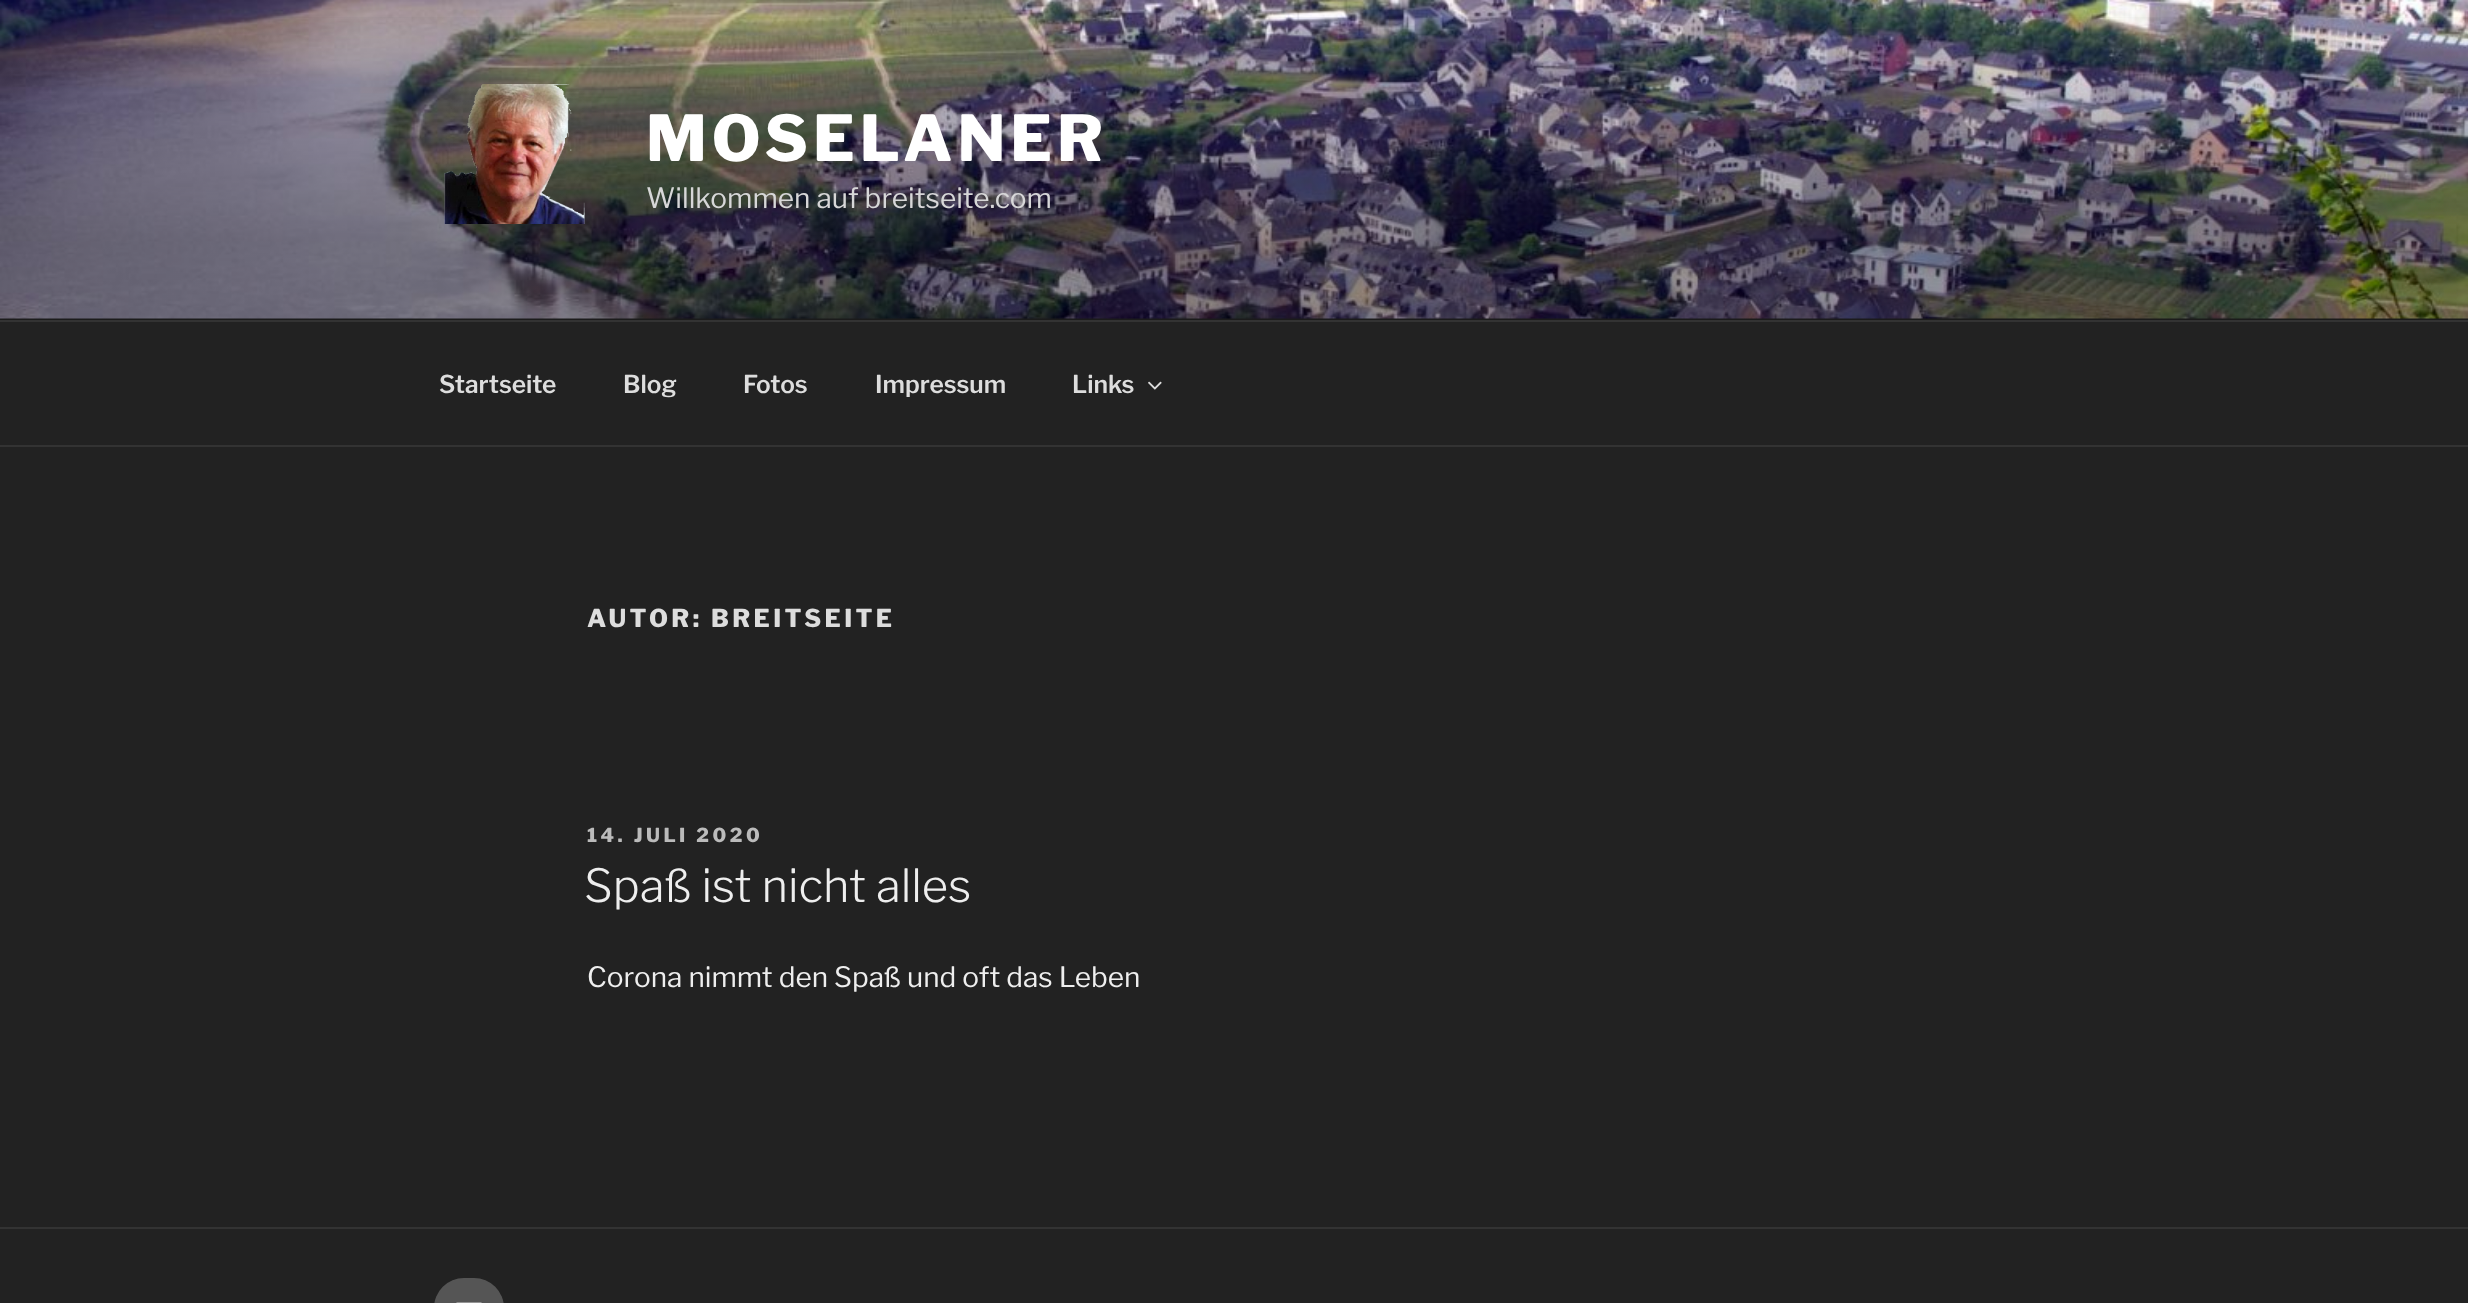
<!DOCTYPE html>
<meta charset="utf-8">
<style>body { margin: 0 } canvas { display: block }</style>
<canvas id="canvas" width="2468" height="1303"></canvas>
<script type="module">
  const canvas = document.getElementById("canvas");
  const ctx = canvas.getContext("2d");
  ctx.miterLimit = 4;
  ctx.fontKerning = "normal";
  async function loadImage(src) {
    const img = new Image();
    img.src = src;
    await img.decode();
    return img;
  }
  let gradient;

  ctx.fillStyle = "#222222";
  ctx.fillRect(0, 0, 2468, 1303);
  ctx.fillStyle = "#262626";
  ctx.fillRect(0, 318, 2468, 2);
  ctx.drawImage(await loadImage("img1.png"), 0, 0, 2468, 319);
  gradient = ctx.createLinearGradient(1235, 0, 1235, 320);
  gradient.addColorStop(0, "rgba(0, 0, 0, 0)");
  gradient.addColorStop(0.75, "rgba(0, 0, 0, 0.3)");
  gradient.addColorStop(1, "rgba(0, 0, 0, 0.3)");
  ctx.fillStyle = gradient;
  ctx.fillRect(0, 17, 2468, 303);
  ctx.drawImage(await loadImage("img2.png"), 444, 84, 141, 140);
  ctx.letterSpacing = "5px";
  ctx.font = "100 63px Libre Franklin";
  ctx.fillStyle = "#ffffff";
  ctx.fillText("MOSELANER", 646, 161);
  ctx.letterSpacing = "0px";
  ctx.font = "100 28px 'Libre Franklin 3'";
  ctx.fillStyle = "#d7d7d8";
  ctx.fillText("Willkommen auf breitseite.com", 646, 208);
  ctx.fillStyle = "#333333";
  ctx.fillRect(0, 320, 2468, 2);
  ctx.fillRect(0, 445, 2468, 2);
  ctx.font = "100 24.5px 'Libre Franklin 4'";
  ctx.fillStyle = "#dddddd";
  ctx.fillText("Startseite", 439, 393);
  ctx.fillText("Blog", 623, 393);
  ctx.fillText("Fotos", 743, 393);
  ctx.fillText("Impressum", 875, 393);
  ctx.fillText("Links", 1072, 393);
  ctx.drawImage(await loadImage("img3.png"), 1148, 381, 14, 9);
  ctx.letterSpacing = "3.4px";
  ctx.font = "100 24.5px Libre Franklin";
  ctx.fillText("AUTOR: BREITSEITE", 587, 627);
  ctx.letterSpacing = "3.5px";
  ctx.font = "100 19.25px Libre Franklin";
  ctx.fillStyle = "#bbbbbb";
  ctx.fillText("14. JULI 2020", 587, 842);
  ctx.letterSpacing = "0px";
  ctx.font = "100 45.5px 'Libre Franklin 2'";
  ctx.fillStyle = "#eeeeee";
  ctx.fillText("Spaß ist nicht alles", 584, 902);
  ctx.font = "100 28px 'Libre Franklin 3'";
  ctx.fillText("Corona nimmt den Spaß und oft das Leben", 587, 987);
  ctx.fillStyle = "#333333";
  ctx.fillRect(0, 1227, 2468, 2);
  ctx.fillStyle = "#555555";
  ctx.beginPath();
  ctx.roundRect(434, 1278, 70, 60, 35);
  ctx.fill();
  ctx.drawImage(await loadImage("img4.png"), 456, 1302, 26, 1);
</script>
